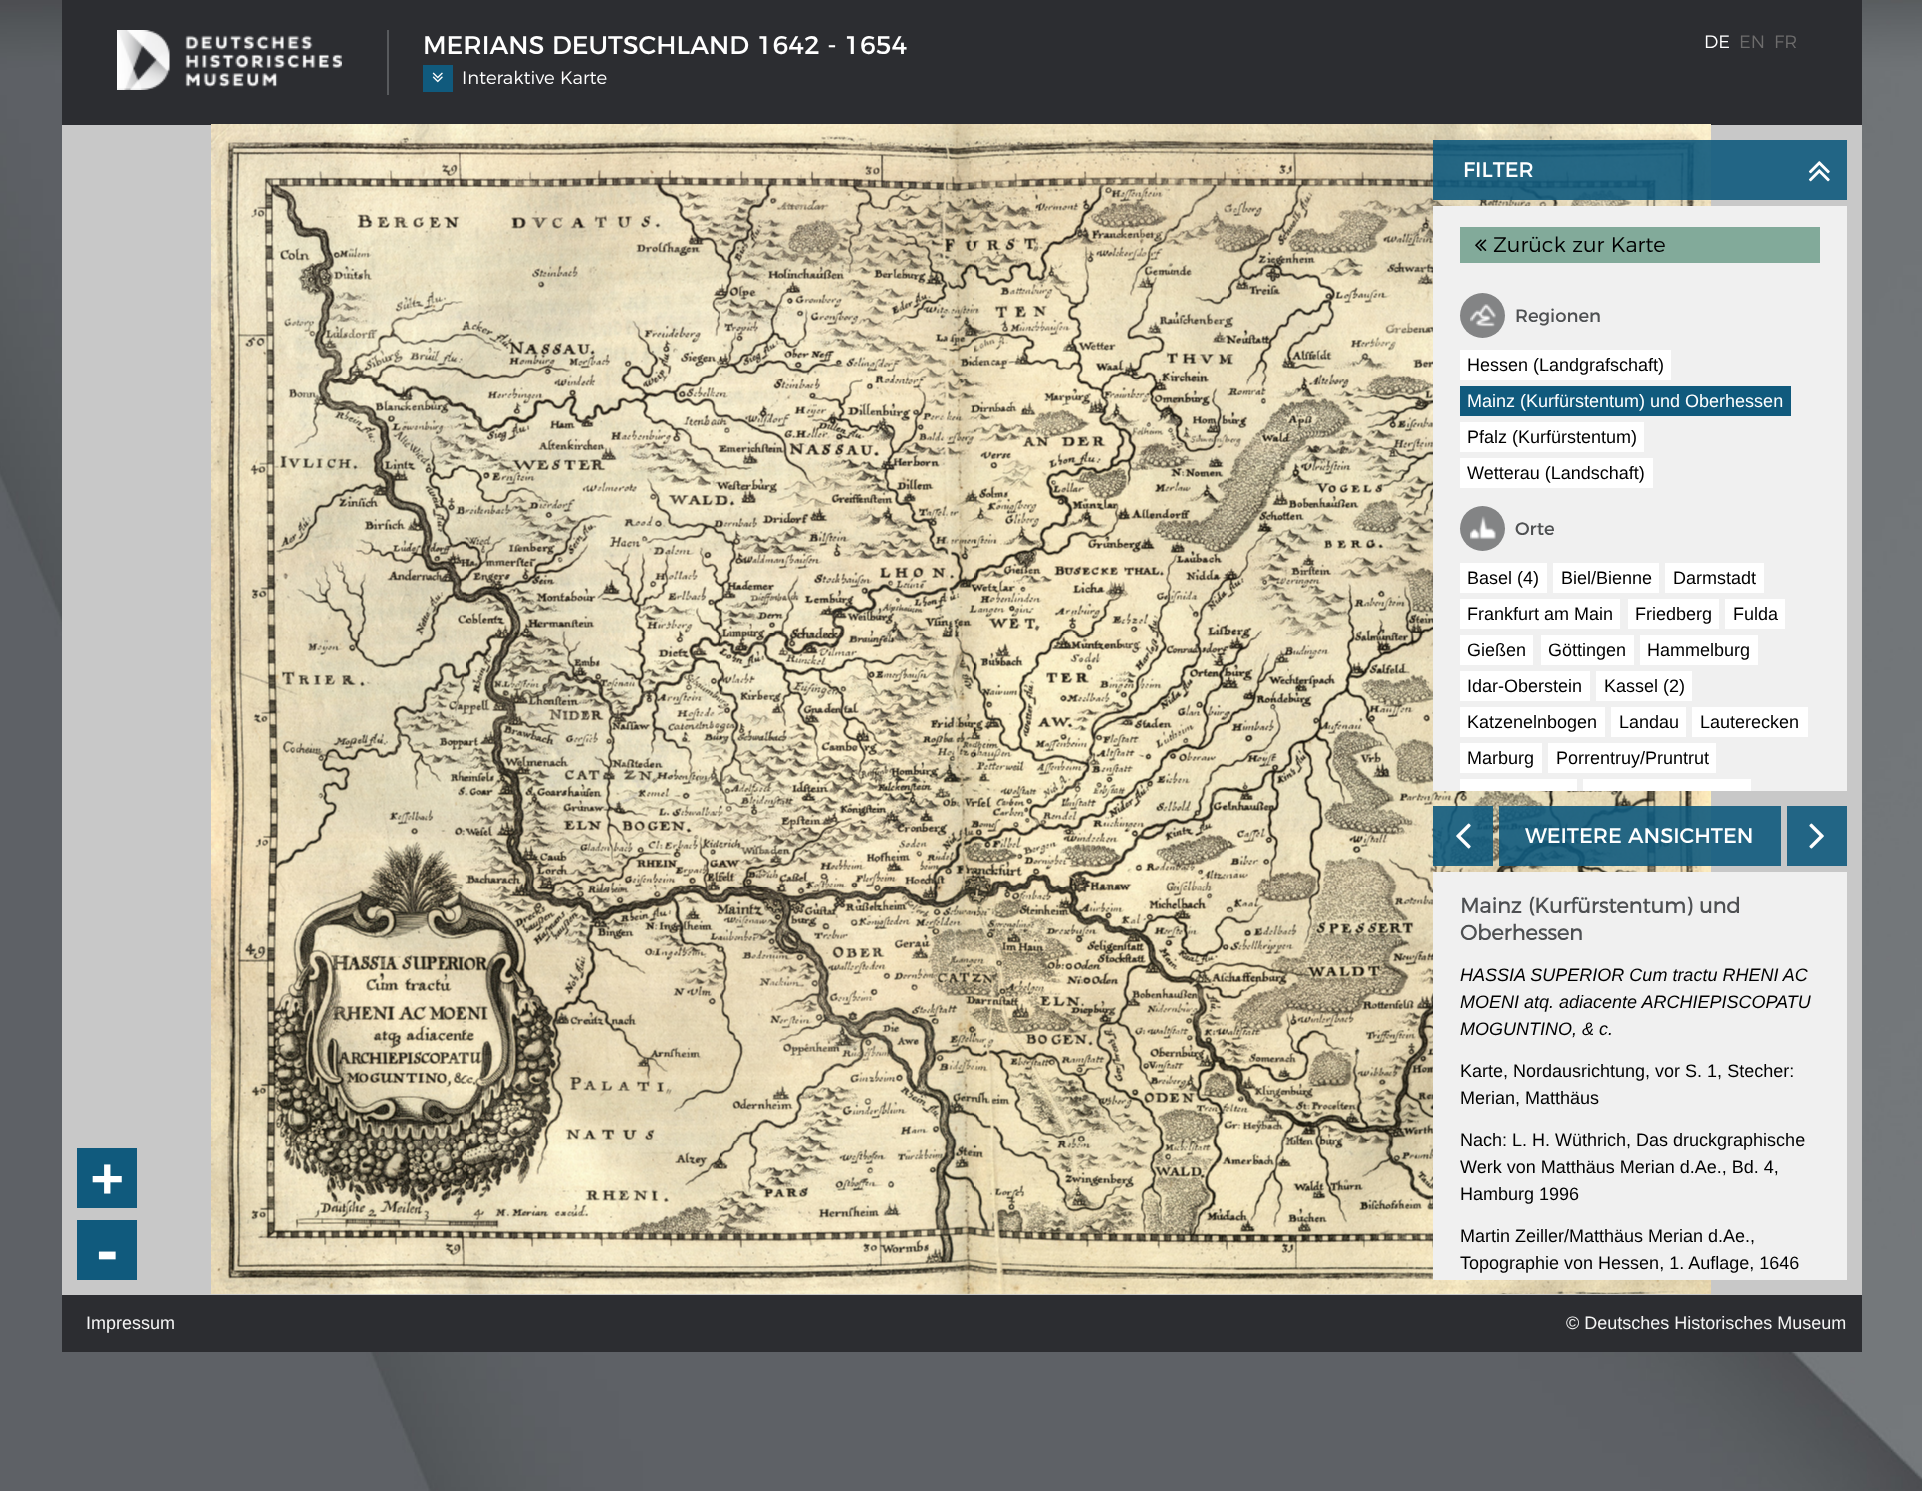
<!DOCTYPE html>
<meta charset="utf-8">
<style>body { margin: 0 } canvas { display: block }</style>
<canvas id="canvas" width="1922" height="1491"></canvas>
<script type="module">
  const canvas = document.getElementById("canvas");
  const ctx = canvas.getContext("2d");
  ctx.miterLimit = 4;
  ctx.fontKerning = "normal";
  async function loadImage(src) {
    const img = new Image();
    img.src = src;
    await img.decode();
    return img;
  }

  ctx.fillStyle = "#ffffff";
  ctx.fillRect(0, 0, 1922, 1491);
  ctx.drawImage(await loadImage("img1.png"), 0, 0, 1922, 1491);
  ctx.fillStyle = "#2c2d31";
  ctx.fillRect(62, 0, 1800, 125);
  ctx.fillStyle = "#585a5d";
  ctx.fillRect(387, 30, 2, 65);
  ctx.drawImage(await loadImage("img2.png"), 117, 30, 225, 60);
  ctx.font = "25.5px Montserrat";
  ctx.fillStyle = "#ffffff";
  ctx.fillText("MERIANS DEUTSCHLAND 1642 - 1654", 423, 54);
  ctx.fillStyle = "#105a7d";
  ctx.fillRect(423, 65, 30, 27);
  ctx.drawImage(await loadImage("img3.png"), 432, 72, 11, 11);
  ctx.font = "300 18px Montserrat";
  ctx.fillStyle = "#ffffff";
  ctx.fillText("Interaktive Karte", 462, 84);
  ctx.fillText("DE", 1704, 48);
  ctx.fillStyle = "#6d6c6c";
  ctx.fillText("EN", 1739, 48);
  ctx.fillText("FR", 1774, 48);
  ctx.fillStyle = "#c8c8c8";
  ctx.fillRect(62, 125, 1800, 1170);
  ctx.fillStyle = "#105a7d";
  ctx.fillRect(77, 1148, 60, 60);
  ctx.font = "bold 54px DejaVu Sans Mono";
  ctx.fillStyle = "#ffffff";
  ctx.fillText("+", 91, 1196);
  ctx.fillStyle = "#105a7d";
  ctx.fillRect(77, 1220, 60, 60);
  ctx.fillStyle = "#ffffff";
  ctx.fillText("-", 91, 1271);
  ctx.drawImage(await loadImage("img4.png"), 211, 124, 1500, 1170);
  ctx.fillStyle = "rgba(16, 90, 125, 0.9)";
  ctx.fillRect(1433, 140, 414, 60);
  ctx.font = "21px Montserrat";
  ctx.fillStyle = "#ffffff";
  ctx.fillText("FILTER", 1463, 177);
  ctx.drawImage(await loadImage("img5.png"), 1808, 161, 22, 21);
  ctx.fillStyle = "#f0f0f0";
  ctx.fillRect(1433, 206, 414, 585);
  ctx.fillStyle = "#82aa9a";
  ctx.fillRect(1460, 227, 360, 36);
  ctx.drawImage(await loadImage("img6.png"), 1475, 239, 12, 12);
  ctx.font = "300 21px Montserrat";
  ctx.fillStyle = "#000000";
  ctx.fillText("Zurück zur Karte", 1493, 252);
  ctx.fillStyle = "#838485";
  ctx.beginPath();
  ctx.arc(1482.5, 315.5, 22.5, 0, Math.PI * 2);
  ctx.fill();
  ctx.drawImage(await loadImage("img7.png"), 1470, 304, 26, 23);
  ctx.font = "18px Montserrat";
  ctx.fillStyle = "#4e5052";
  ctx.fillText("Regionen", 1515, 322);
  ctx.fillStyle = "#ffffff";
  ctx.fillRect(1460, 350, 211, 30);
  ctx.font = "18px Liberation Sans";
  ctx.fillStyle = "#000000";
  ctx.fillText("Hessen (Landgrafschaft)", 1467, 371);
  ctx.fillStyle = "#105a7d";
  ctx.fillRect(1460, 386, 331, 30);
  ctx.fillStyle = "#ffffff";
  ctx.fillText("Mainz (Kurfürstentum) und Oberhessen", 1467, 407);
  ctx.fillRect(1460, 422, 184, 30);
  ctx.fillStyle = "#000000";
  ctx.fillText("Pfalz (Kurfürstentum)", 1467, 443);
  ctx.fillStyle = "#ffffff";
  ctx.fillRect(1460, 458, 193, 30);
  ctx.fillStyle = "#000000";
  ctx.fillText("Wetterau (Landschaft)", 1467, 479);
  ctx.fillStyle = "#838485";
  ctx.beginPath();
  ctx.arc(1482.5, 528.5, 22.5, 0, Math.PI * 2);
  ctx.fill();
  ctx.drawImage(await loadImage("img8.png"), 1470, 516, 26, 24);
  ctx.font = "18px Montserrat";
  ctx.fillStyle = "#4e5052";
  ctx.fillText("Orte", 1515, 535);
  ctx.fillStyle = "#ffffff";
  ctx.fillRect(1460, 563, 87, 30);
  ctx.font = "18px Liberation Sans";
  ctx.fillStyle = "#000000";
  ctx.fillText("Basel (4)", 1467, 584);
  ctx.fillStyle = "#ffffff";
  ctx.fillRect(1553, 563, 106, 30);
  ctx.fillStyle = "#000000";
  ctx.fillText("Biel/Bienne", 1561, 584);
  ctx.fillStyle = "#ffffff";
  ctx.fillRect(1665, 563, 99, 30);
  ctx.fillStyle = "#000000";
  ctx.fillText("Darmstadt", 1673, 584);
  ctx.fillStyle = "#ffffff";
  ctx.fillRect(1460, 599, 160, 30);
  ctx.fillStyle = "#000000";
  ctx.fillText("Frankfurt am Main", 1467, 620);
  ctx.fillStyle = "#ffffff";
  ctx.fillRect(1628, 599, 91, 30);
  ctx.fillStyle = "#000000";
  ctx.fillText("Friedberg", 1635, 620);
  ctx.fillStyle = "#ffffff";
  ctx.fillRect(1725, 599, 60, 30);
  ctx.fillStyle = "#000000";
  ctx.fillText("Fulda", 1733, 620);
  ctx.fillStyle = "#ffffff";
  ctx.fillRect(1460, 635, 73, 30);
  ctx.fillStyle = "#000000";
  ctx.fillText("Gießen", 1467, 656);
  ctx.fillStyle = "#ffffff";
  ctx.fillRect(1541, 635, 93, 30);
  ctx.fillStyle = "#000000";
  ctx.fillText("Göttingen", 1548, 656);
  ctx.fillStyle = "#ffffff";
  ctx.fillRect(1640, 635, 118, 30);
  ctx.fillStyle = "#000000";
  ctx.fillText("Hammelburg", 1647, 656);
  ctx.fillStyle = "#ffffff";
  ctx.fillRect(1460, 671, 130, 30);
  ctx.fillStyle = "#000000";
  ctx.fillText("Idar-Oberstein", 1467, 692);
  ctx.fillStyle = "#ffffff";
  ctx.fillRect(1596, 671, 96, 30);
  ctx.fillStyle = "#000000";
  ctx.fillText("Kassel (2)", 1604, 692);
  ctx.fillStyle = "#ffffff";
  ctx.fillRect(1460, 707, 145, 30);
  ctx.fillStyle = "#000000";
  ctx.fillText("Katzenelnbogen", 1467, 728);
  ctx.fillStyle = "#ffffff";
  ctx.fillRect(1611, 707, 75, 30);
  ctx.fillStyle = "#000000";
  ctx.fillText("Landau", 1619, 728);
  ctx.fillStyle = "#ffffff";
  ctx.fillRect(1692, 707, 116, 30);
  ctx.fillStyle = "#000000";
  ctx.fillText("Lauterecken", 1700, 728);
  ctx.fillStyle = "#ffffff";
  ctx.fillRect(1460, 743, 82, 30);
  ctx.fillStyle = "#000000";
  ctx.fillText("Marburg", 1467, 764);
  ctx.fillStyle = "#ffffff";
  ctx.fillRect(1548, 743, 168, 30);
  ctx.fillStyle = "#000000";
  ctx.fillText("Porrentruy/Pruntrut", 1556, 764);
  ctx.fillStyle = "#ffffff";
  ctx.fillRect(1460, 779, 117, 12);
  ctx.fillRect(1583, 779, 168, 12);
  ctx.fillStyle = "rgba(16, 90, 125, 0.9)";
  ctx.fillRect(1433, 806, 60, 60);
  ctx.drawImage(await loadImage("img9.png"), 1456, 823, 15, 26);
  ctx.fillRect(1499, 806, 282, 60);
  ctx.font = "21px Montserrat";
  ctx.fillStyle = "#ffffff";
  ctx.fillText("WEITERE ANSICHTEN", 1525, 843);
  ctx.fillStyle = "#226585";
  ctx.fillRect(1787, 806, 60, 60);
  ctx.drawImage(await loadImage("img10.png"), 1809, 823, 15, 26);
  ctx.fillStyle = "#f0f0f0";
  ctx.fillRect(1433, 872, 414, 408);
  ctx.font = "bold 21px Montserrat";
  ctx.fillStyle = "#4e5052";
  ctx.fillText("Mainz (Kurfürstentum) und", 1460, 913);
  ctx.fillText("Oberhessen", 1460, 940);
  ctx.font = "italic 18px Liberation Sans";
  ctx.fillStyle = "#000000";
  ctx.fillText("HASSIA SUPERIOR Cum tractu RHENI AC", 1460, 981);
  ctx.fillText("MOENI atq. adiacente ARCHIEPISCOPATU", 1460, 1008);
  ctx.fillText("MOGUNTINO, & c.", 1460, 1035);
  ctx.font = "18px Liberation Sans";
  ctx.fillText("Karte, Nordausrichtung, vor S. 1, Stecher:", 1460, 1077);
  ctx.fillText("Merian, Matthäus", 1460, 1104);
  ctx.fillText("Nach: L. H. Wüthrich, Das druckgraphische", 1460, 1146);
  ctx.fillText("Werk von Matthäus Merian d.Ae., Bd. 4,", 1460, 1173);
  ctx.fillText("Hamburg 1996", 1460, 1200);
  ctx.fillText("Martin Zeiller/Matthäus Merian d.Ae.,", 1460, 1242);
  ctx.fillText("Topographie von Hessen, 1. Auflage, 1646", 1460, 1269);
  ctx.fillStyle = "#2c2d31";
  ctx.fillRect(62, 1295, 1800, 57);
  ctx.fillStyle = "#f4f4f4";
  ctx.fillText("Impressum", 86, 1329);
  ctx.fillText("© Deutsches Historisches Museum", 1566, 1329);
</script>
